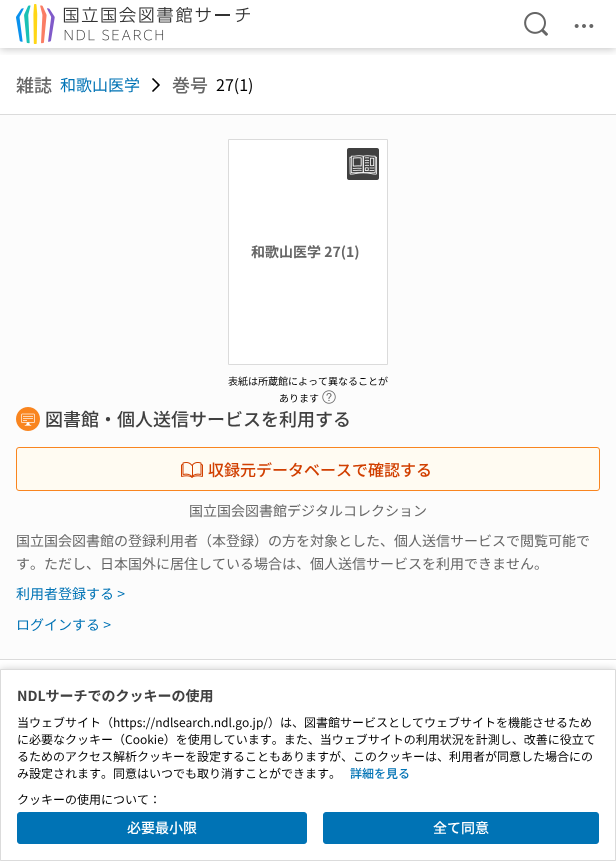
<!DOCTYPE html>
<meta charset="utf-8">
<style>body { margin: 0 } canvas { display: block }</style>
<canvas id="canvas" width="616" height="861"></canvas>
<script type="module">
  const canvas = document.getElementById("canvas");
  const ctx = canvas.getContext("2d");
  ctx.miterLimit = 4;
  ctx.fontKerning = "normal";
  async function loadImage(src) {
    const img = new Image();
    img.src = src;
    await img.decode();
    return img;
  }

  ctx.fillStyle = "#ffffff";
  ctx.fillRect(0, 0, 616, 861);
  ctx.save();
  ctx.beginPath();
  ctx.rect(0, 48, 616, 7);
  ctx.clip();
  ctx.fillStyle = "rgba(0, 0, 0, 0.24)";
  ctx.filter = "blur(4px)";
  ctx.beginPath();
  ctx.rect(0, 1, 616, 48);
  ctx.fill();
  ctx.filter = "none";
  ctx.restore();
  ctx.drawImage(await loadImage("img1.png"), 16, 4, 234, 40);
  ctx.drawImage(await loadImage("img2.png"), 524, 12, 24, 24);
  ctx.drawImage(await loadImage("img3.png"), 574, 24, 20, 4);
  ctx.font = "500 18px Noto Sans JP";
  ctx.fillStyle = "#666666";
  ctx.fillText("雑誌", 16, 92);
  ctx.font = "16px Noto Sans JP";
  ctx.fillStyle = "#0073b5";
  ctx.fillText("和歌山医学", 60, 91);
  ctx.drawImage(await loadImage("img4.png"), 152, 78, 8, 14);
  ctx.font = "500 18px Noto Sans JP";
  ctx.fillStyle = "#666666";
  ctx.fillText("巻号", 172, 92);
  ctx.font = "16px Noto Sans JP";
  ctx.fillStyle = "#000000";
  ctx.fillText("27(1)", 216, 91);
  ctx.fillStyle = "#fcfcfc";
  ctx.fillRect(0, 115, 616, 544);
  ctx.fillStyle = "#dbdbdb";
  ctx.fillRect(0, 114, 616, 1);
  ctx.fillRect(0, 659, 616, 1);
  ctx.fillStyle = "#ffffff";
  ctx.beginPath();
  ctx.rect(228.5, 139.5, 159, 225);
  ctx.fill();
  ctx.strokeStyle = "#dbdbdb";
  ctx.stroke();
  ctx.drawImage(await loadImage("img5.png"), 347, 148, 32, 32);
  ctx.font = "bold 14px Noto Sans JP";
  ctx.fillStyle = "#666666";
  ctx.fillText("和歌山医学 27(1)", 251, 257);
  ctx.font = "10px Noto Sans JP";
  ctx.fillStyle = "#000000";
  ctx.fillText("表紙は所蔵館によって異なることが", 228, 385);
  ctx.fillText("あります", 279, 402);
  ctx.drawImage(await loadImage("img6.png"), 322, 390, 14, 14);
  ctx.drawImage(await loadImage("img7.png"), 16, 407, 24, 24);
  ctx.font = "500 18px Noto Sans JP";
  ctx.fillStyle = "#404040";
  ctx.fillText("図書館・個人送信サービスを利用する", 45, 426);
  ctx.fillStyle = "#fffbf2";
  ctx.beginPath();
  ctx.roundRect(16.5, 447.5, 583, 43, 2.5);
  ctx.fill();
  ctx.strokeStyle = "#f9851f";
  ctx.stroke();
  ctx.drawImage(await loadImage("img8.png"), 181, 462, 22, 16);
  ctx.font = "500 16px Noto Sans JP";
  ctx.fillStyle = "#d13f00";
  ctx.fillText("収録元データベースで確認する", 208, 476);
  ctx.font = "14px Noto Sans JP";
  ctx.fillStyle = "#666666";
  ctx.fillText("国立国会図書館デジタルコレクション", 189, 516);
  ctx.fillText("国立国会図書館の登録利用者（本登録）の方を対象とした、個人送信サービスで閲覧可能で", 16, 546);
  ctx.fillText("す。ただし、日本国外に居住している場合は、個人送信サービスを利用できません。", 16, 569);
  ctx.fillStyle = "#0073b5";
  ctx.fillText("利用者登録する >", 16, 599);
  ctx.fillText("ログインする >", 16, 630);
  ctx.fillStyle = "rgba(0, 0, 0, 0.24)";
  ctx.filter = "blur(4px)";
  ctx.beginPath();
  ctx.rect(0, 670, 616, 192);
  ctx.fill();
  ctx.filter = "none";
  ctx.fillStyle = "#ffffff";
  ctx.beginPath();
  ctx.rect(0.5, 669.5, 615, 191);
  ctx.fill();
  ctx.strokeStyle = "#dbdbdb";
  ctx.stroke();
  ctx.font = "bold 14px Noto Sans JP";
  ctx.fillStyle = "#404040";
  ctx.fillText("NDLサーチでのクッキーの使用", 17, 701);
  ctx.font = "12px Noto Sans JP";
  ctx.fillStyle = "#000000";
  ctx.fillText("当ウェブサイト（https://ndlsearch.ndl.go.jp/）は、図書館サービスとしてウェブサイトを機能させるため", 17, 727);
  ctx.fillText("に必要なクッキー（Cookie）を使用しています。また、当ウェブサイトの利用状況を計測し、改善に役立て", 17, 744);
  ctx.fillText("るためのアクセス解析クッキーを設定することもありますが、このクッキーは、利用者が同意した場合にの", 17, 761);
  ctx.fillText("み設定されます。同意はいつでも取り消すことができます。", 17, 778);
  ctx.font = "500 12px Noto Sans JP";
  ctx.fillStyle = "#0073b5";
  ctx.fillText("詳細を見る", 350, 778);
  ctx.font = "12px Noto Sans JP";
  ctx.fillStyle = "#000000";
  ctx.fillText("クッキーの使用について：", 17, 804);
  ctx.fillStyle = "#0073b5";
  ctx.beginPath();
  ctx.roundRect(17.5, 812.5, 289, 31, 2.5);
  ctx.fill();
  ctx.strokeStyle = "#0073b5";
  ctx.stroke();
  ctx.font = "500 14px Noto Sans JP";
  ctx.fillStyle = "#ffffff";
  ctx.fillText("必要最小限", 127, 833);
  ctx.fillStyle = "#0073b5";
  ctx.beginPath();
  ctx.roundRect(323.5, 812.5, 275, 31, 2.5);
  ctx.fill();
  ctx.stroke();
  ctx.fillStyle = "#ffffff";
  ctx.fillText("全て同意", 433, 833);
</script>
